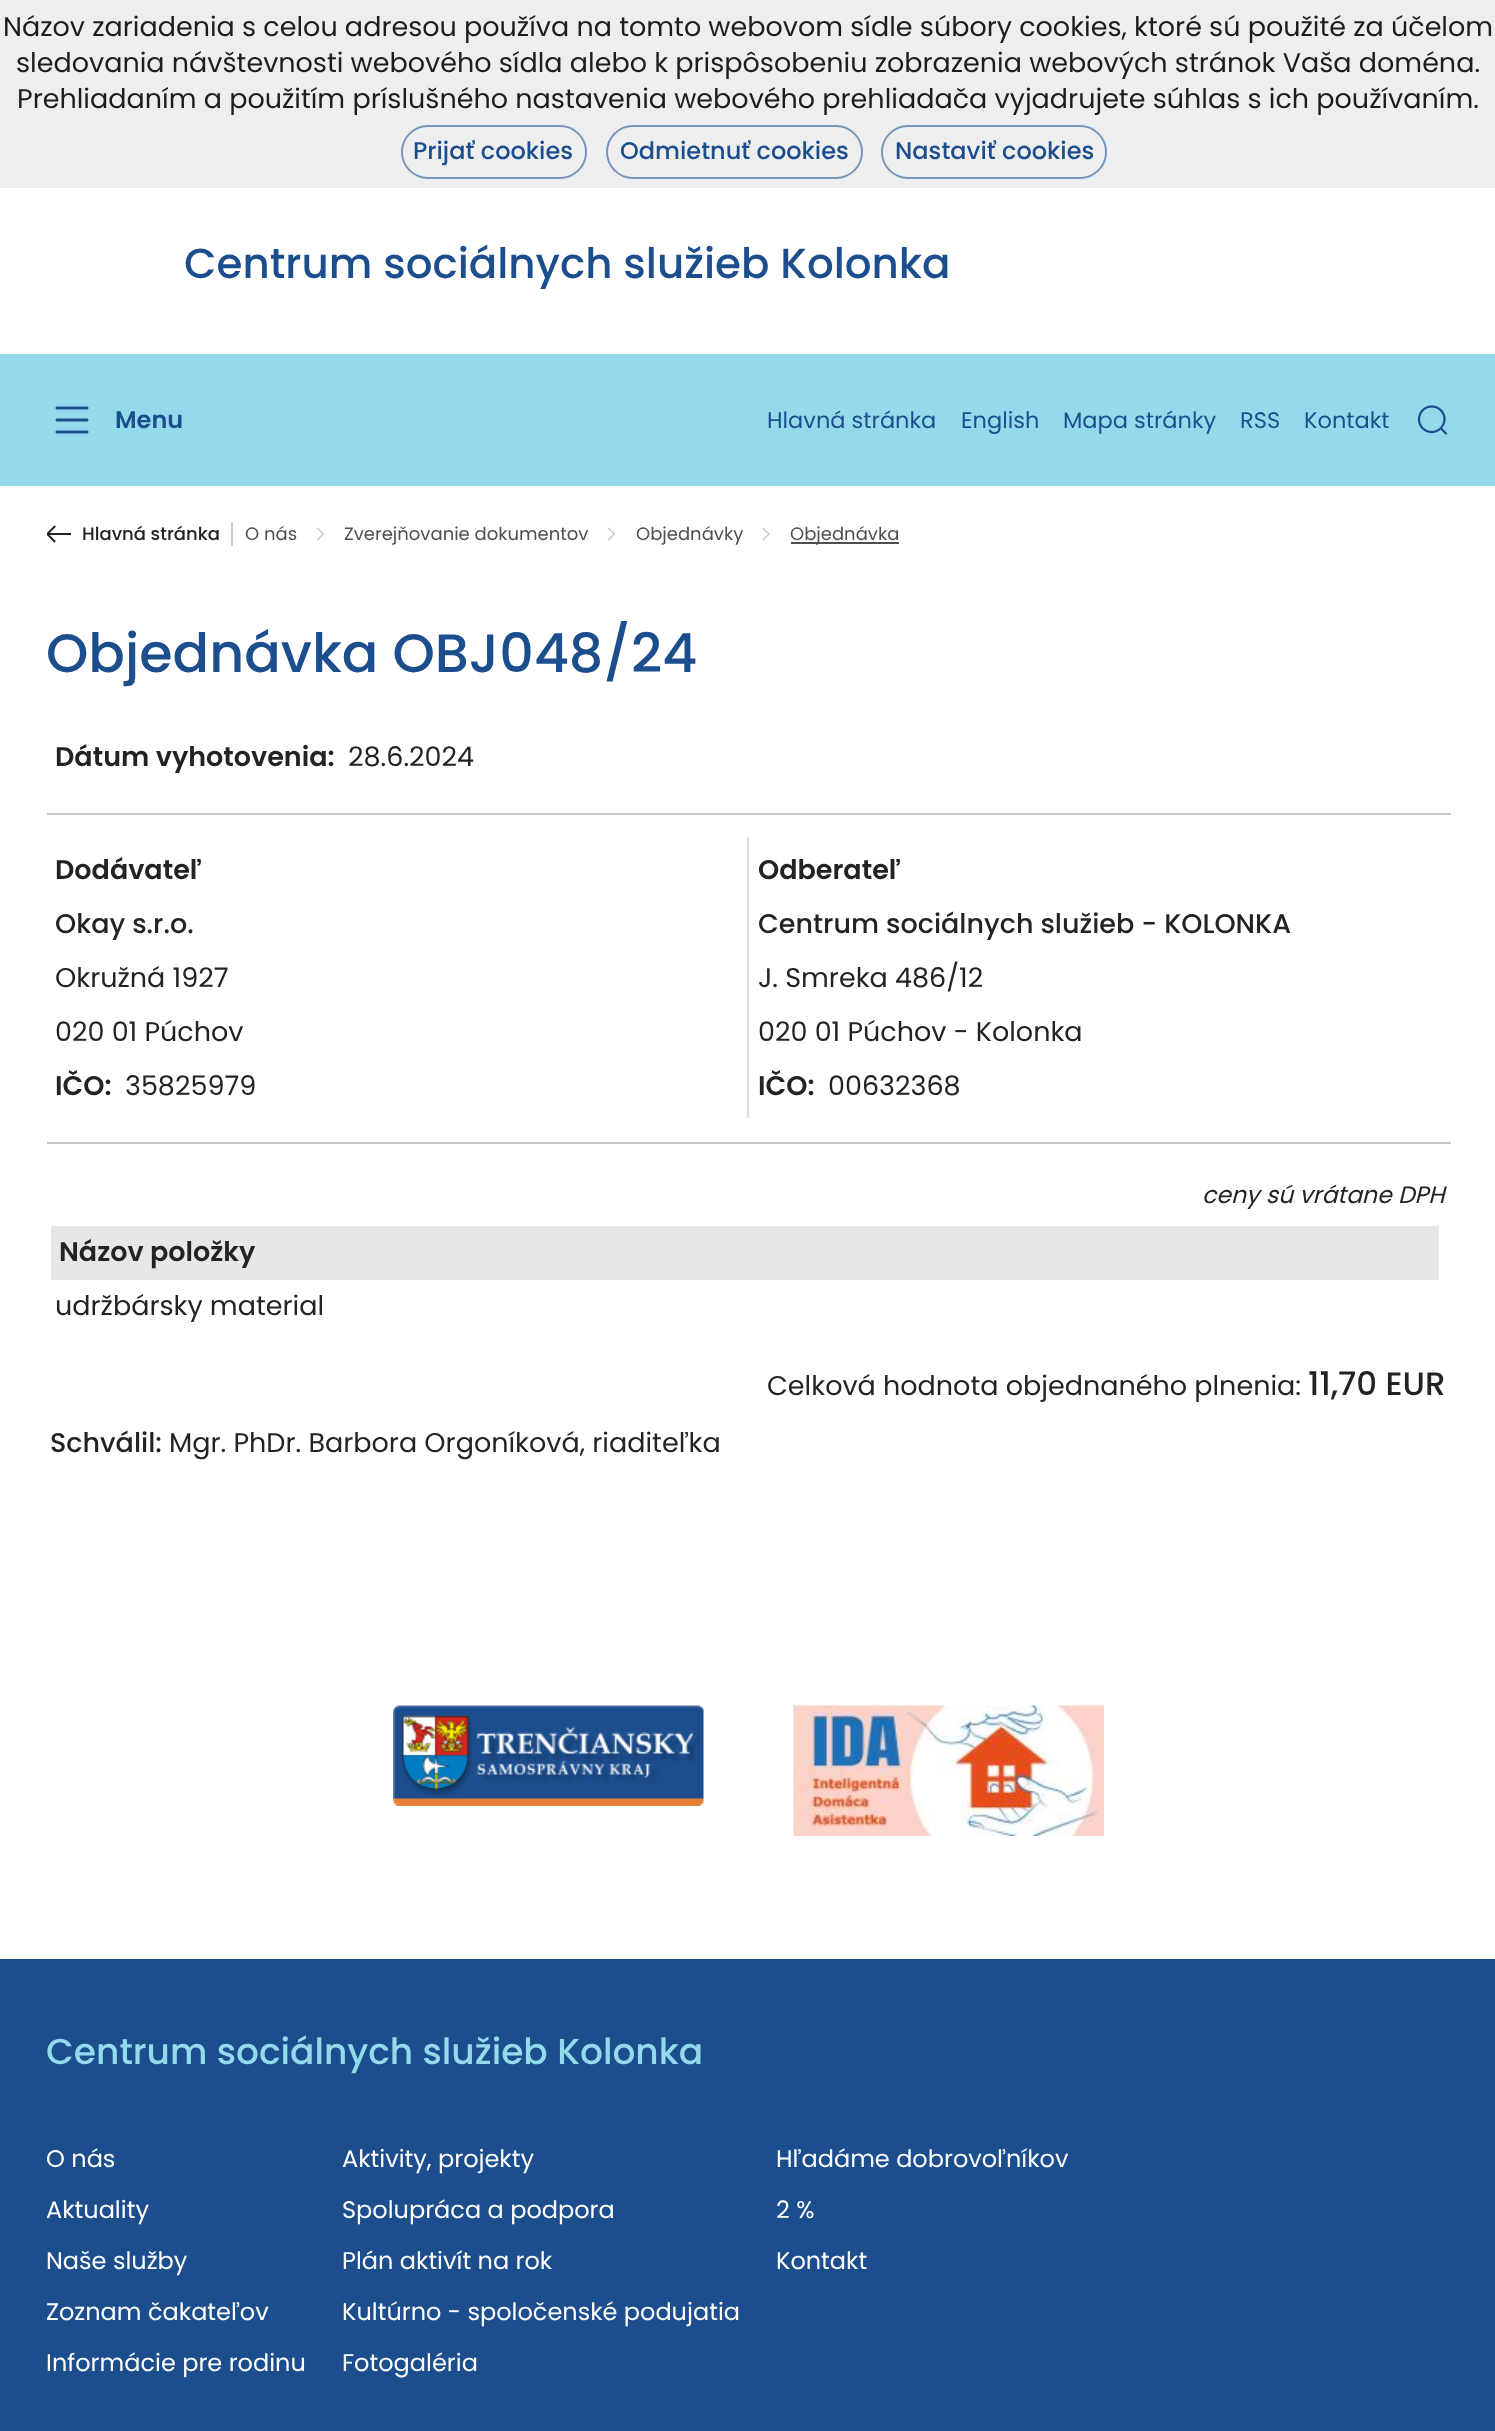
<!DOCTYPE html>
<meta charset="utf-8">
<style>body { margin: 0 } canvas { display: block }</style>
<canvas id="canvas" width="1495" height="2431"></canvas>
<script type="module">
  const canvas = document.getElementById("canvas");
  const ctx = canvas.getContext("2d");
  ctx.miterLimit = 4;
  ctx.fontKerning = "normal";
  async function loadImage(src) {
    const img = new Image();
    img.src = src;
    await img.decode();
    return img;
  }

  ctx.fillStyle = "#ffffff";
  ctx.fillRect(0, 0, 1495, 2431);
  ctx.fillStyle = "#eeeeee";
  ctx.fillRect(0, 0, 1495, 188);
  ctx.font = "27px Poppins";
  ctx.fillStyle = "#1d1d1b";
  ctx.fillText("Názov zariadenia s celou adresou používa na tomto webovom sídle súbory cookies, ktoré sú použité za účelom", 3, 36);
  ctx.fillText("sledovania návštevnosti webového sídla alebo k prispôsobeniu zobrazenia webových stránok Vaša doména.", 16, 72);
  ctx.fillText("Prehliadaním a použitím príslušného nastavenia webového prehliadača vyjadrujete súhlas s ich používaním.", 17, 108);
  ctx.beginPath();
  ctx.roundRect(402, 126, 184, 52, 26);
  ctx.strokeStyle = "#7795bb";
  ctx.lineWidth = 2;
  ctx.stroke();
  ctx.font = "500 24px Poppins";
  ctx.fillStyle = "#1c4e8e";
  ctx.fillText("Prijať cookies", 413, 159);
  ctx.beginPath();
  ctx.roundRect(607, 126, 255, 52, 26);
  ctx.stroke();
  ctx.fillText("Odmietnuť cookies", 620, 159);
  ctx.beginPath();
  ctx.roundRect(882, 126, 224, 52, 26);
  ctx.stroke();
  ctx.fillText("Nastaviť cookies", 895, 159);
  ctx.font = "500 42px Poppins";
  ctx.fillText("Centrum sociálnych služieb Kolonka", 184, 278);
  ctx.fillStyle = "#93daeb";
  ctx.fillRect(0, 354, 1495, 132);
  ctx.drawImage(await loadImage("img1.png"), 55, 406, 34, 28);
  ctx.font = "600 24px Poppins";
  ctx.fillStyle = "#1c4e8e";
  ctx.fillText("Menu", 115, 428);
  ctx.font = "22.5px Poppins";
  ctx.fillText("Hlavná stránka", 767, 428);
  ctx.fillText("English", 961, 428);
  ctx.fillText("Mapa stránky", 1063, 428);
  ctx.fillText("RSS", 1240, 428);
  ctx.fillText("Kontakt", 1304, 428);
  ctx.drawImage(await loadImage("img2.png"), 1417, 405, 31, 30);
  ctx.drawImage(await loadImage("img3.png"), 47, 525, 24, 18);
  ctx.font = "500 18px Poppins";
  ctx.fillStyle = "#232323";
  ctx.fillText("Hlavná stránka", 82, 540);
  ctx.fillStyle = "#cccccc";
  ctx.fillRect(231, 522, 2, 24);
  ctx.font = "18px Poppins";
  ctx.fillStyle = "#4f4f4f";
  ctx.fillText("O nás", 245, 540);
  ctx.drawImage(await loadImage("img4.png"), 316, 527, 8, 14);
  ctx.fillText("Zverejňovanie dokumentov", 344, 540);
  ctx.drawImage(await loadImage("img4.png"), 607, 527, 8, 14);
  ctx.fillText("Objednávky", 636, 540);
  ctx.drawImage(await loadImage("img5.png"), 762, 527, 8, 14);
  ctx.fillRect(791, 542, 108, 2);
  ctx.fillText("Objednávka", 790, 540);
  ctx.font = "500 54px Poppins";
  ctx.fillStyle = "#1c4e8e";
  ctx.fillText("Objednávka OBJ048/24", 46, 672);
  ctx.font = "600 27px Poppins";
  ctx.fillStyle = "#232323";
  ctx.fillText("Dátum vyhotovenia:", 55, 766);
  ctx.font = "27px Poppins";
  ctx.fillText("28.6.2024", 348, 766);
  ctx.fillStyle = "#c8c8c8";
  ctx.fillRect(47, 813, 1404, 2);
  ctx.fillStyle = "#dddddd";
  ctx.fillRect(747, 837, 2, 281);
  ctx.font = "600 27px Poppins";
  ctx.fillStyle = "#232323";
  ctx.fillText("Dodávateľ", 55, 879);
  ctx.font = "500 27px Poppins";
  ctx.fillText("Okay s.r.o.", 55, 933);
  ctx.font = "27px Poppins";
  ctx.fillText("Okružná 1927", 55, 987);
  ctx.fillText("020 01 Púchov", 55, 1041);
  ctx.font = "600 27px Poppins";
  ctx.fillText("IČO:", 55, 1095);
  ctx.font = "27px Poppins";
  ctx.fillText("35825979", 125, 1095);
  ctx.font = "600 27px Poppins";
  ctx.fillText("Odberateľ", 758, 879);
  ctx.font = "500 27px Poppins";
  ctx.fillText("Centrum sociálnych služieb - KOLONKA", 758, 933);
  ctx.font = "27px Poppins";
  ctx.fillText("J. Smreka 486/12", 758, 987);
  ctx.fillText("020 01 Púchov - Kolonka", 758, 1041);
  ctx.font = "600 27px Poppins";
  ctx.fillText("IČO:", 758, 1095);
  ctx.font = "27px Poppins";
  ctx.fillText("00632368", 828, 1095);
  ctx.fillStyle = "#c8c8c8";
  ctx.fillRect(47, 1142, 1404, 2);
  ctx.font = "italic 23.6px Poppins";
  ctx.fillStyle = "#232323";
  ctx.fillText("ceny sú vrátane DPH", 1202, 1203);
  ctx.fillStyle = "#e8e7e7";
  ctx.fillRect(51, 1226, 1388, 54);
  ctx.font = "600 27px Poppins";
  ctx.fillStyle = "#232323";
  ctx.fillText("Názov položky", 59, 1261);
  ctx.font = "27px Poppins";
  ctx.fillText("udržbársky material", 55, 1315);
  ctx.fillText("Celková hodnota objednaného plnenia:", 767, 1395);
  ctx.font = "500 32.5px Poppins";
  ctx.fillText("11,70 EUR", 1308, 1395);
  ctx.font = "500 27px Poppins";
  ctx.fillText("Schválil:", 50, 1452);
  ctx.font = "27px Poppins";
  ctx.fillText("Mgr. PhDr. Barbora Orgoníková, riaditeľka", 169, 1452);
  ctx.drawImage(await loadImage("img6.png"), 393, 1705, 311, 101);
  ctx.drawImage(await loadImage("img7.png"), 793, 1705, 311, 131);
  ctx.fillStyle = "#1c4e8e";
  ctx.fillRect(0, 1959, 1495, 472);
  ctx.font = "500 36px Poppins";
  ctx.fillStyle = "#93daeb";
  ctx.fillText("Centrum sociálnych služieb Kolonka", 46, 2064);
  ctx.font = "24px Poppins";
  ctx.fillStyle = "#ffffff";
  ctx.fillText("O nás", 46, 2167);
  ctx.fillText("Aktuality", 46, 2218);
  ctx.fillText("Naše služby", 46, 2269);
  ctx.fillText("Zoznam čakateľov", 46, 2320);
  ctx.fillText("Informácie pre rodinu", 46, 2371);
  ctx.fillText("Aktivity, projekty", 342, 2167);
  ctx.fillText("Spolupráca a podpora", 342, 2218);
  ctx.fillText("Plán aktivít na rok", 342, 2269);
  ctx.fillText("Kultúrno - spoločenské podujatia", 342, 2320);
  ctx.fillText("Fotogaléria", 342, 2371);
  ctx.fillText("Hľadáme dobrovoľníkov", 776, 2167);
  ctx.fillText("2 %", 776, 2218);
  ctx.fillText("Kontakt", 776, 2269);
</script>
